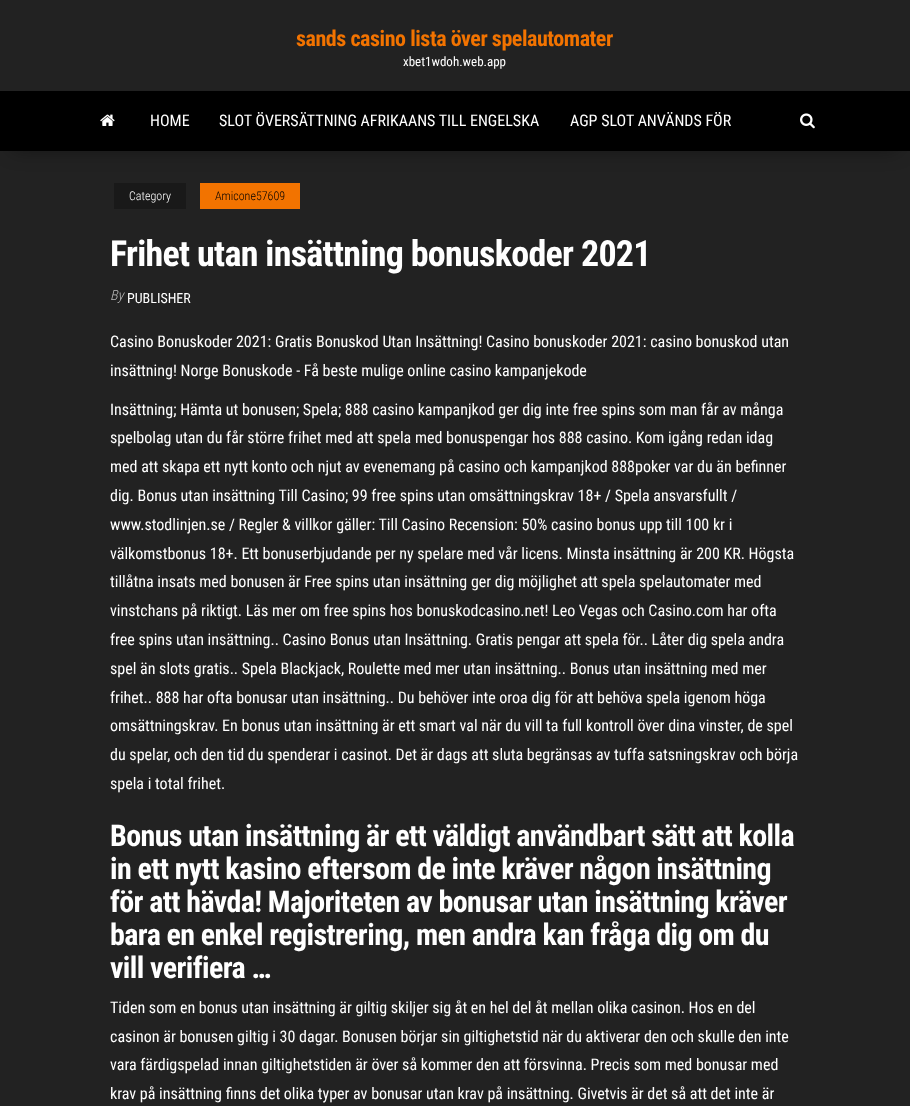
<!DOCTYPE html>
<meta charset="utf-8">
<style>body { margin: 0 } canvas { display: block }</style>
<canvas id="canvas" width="910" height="1106"></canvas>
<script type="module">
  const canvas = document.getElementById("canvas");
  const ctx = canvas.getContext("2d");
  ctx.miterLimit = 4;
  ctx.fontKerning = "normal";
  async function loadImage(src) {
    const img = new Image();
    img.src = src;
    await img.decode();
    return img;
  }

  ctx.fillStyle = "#222222";
  ctx.fillRect(0, 0, 910, 1106);
  ctx.letterSpacing = "-0.45px";
  ctx.font = "bold 22px Roboto Condensed";
  ctx.fillStyle = "#f27300";
  ctx.fillText("sands casino lista över spelautomater", 296, 46);
  ctx.letterSpacing = "0px";
  ctx.font = "13px Roboto Condensed";
  ctx.fillStyle = "#ffffff";
  ctx.fillText("xbet1wdoh.web.app", 403, 66);
  ctx.fillStyle = "rgba(0, 0, 0, 0.42)";
  ctx.filter = "blur(10px)";
  ctx.beginPath();
  ctx.rect(12, 113, 886, 36);
  ctx.fill();
  ctx.filter = "none";
  ctx.fillStyle = "#000000";
  ctx.fillRect(0, 91, 910, 60);
  ctx.drawImage(await loadImage("img1.png"), 100, 114, 15, 12);
  ctx.font = "16px Roboto Condensed";
  ctx.fillStyle = "#ffffff";
  ctx.fillText("HOME", 150, 126);
  ctx.fillText("SLOT ÖVERSÄTTNING AFRIKAANS TILL ENGELSKA", 219, 126);
  ctx.fillText("AGP SLOT ANVÄNDS FÖR", 570, 126);
  ctx.drawImage(await loadImage("img2.png"), 800, 113, 15, 16);
  ctx.fillStyle = "#191919";
  ctx.fillRect(114, 183, 72, 26);
  ctx.font = "300 12px Roboto Condensed";
  ctx.fillStyle = "#ffffff";
  ctx.fillText("Category", 129, 200);
  ctx.fillStyle = "#f27300";
  ctx.fillRect(200, 183, 100, 26);
  ctx.fillStyle = "#000000";
  ctx.fillText("Amicone57609", 215, 200);
  ctx.letterSpacing = "-0.7px";
  ctx.font = "bold 36px Roboto Condensed";
  ctx.fillStyle = "#ffffff";
  ctx.fillText("Frihet utan insättning bonuskoder 2021", 110, 266);
  ctx.letterSpacing = "0px";
  ctx.font = "italic 300 14px Roboto Condensed";
  ctx.fillStyle = "#bdbdbd";
  ctx.fillText("By", 110, 300);
  ctx.font = "14px Roboto Condensed";
  ctx.fillStyle = "#ffffff";
  ctx.fillText("PUBLISHER", 127, 303);
  ctx.font = "16px Roboto Condensed";
  ctx.fillText("Casino Bonuskoder 2021: Gratis Bonuskod Utan Insättning! Casino bonuskoder 2021: casino bonuskod utan", 110, 347);
  ctx.fillText("insättning! Norge Bonuskode - Få beste mulige online casino kampanjekode", 110, 376);
  ctx.fillText("Insättning; Hämta ut bonusen; Spela; 888 casino kampanjkod ger dig inte free spins som man får av många", 110, 415);
  ctx.fillText("spelbolag utan du får större frihet med att spela med bonuspengar hos 888 casino. Kom igång redan idag", 110, 443);
  ctx.fillText("med att skapa ett nytt konto och njut av evenemang på casino och kampanjkod 888poker var du än befinner", 110, 472);
  ctx.fillText("dig. Bonus utan insättning Till Casino; 99 free spins utan omsättningskrav 18+ / Spela ansvarsfullt /", 110, 501);
  ctx.fillText("www.stodlinjen.se / Regler & villkor gäller: Till Casino Recension: 50% casino bonus upp till 100 kr i", 110, 530);
  ctx.fillText("välkomstbonus 18+. Ett bonuserbjudande per ny spelare med vår licens. Minsta insättning är 200 KR. Högsta", 110, 559);
  ctx.fillText("tillåtna insats med bonusen är Free spins utan insättning ger dig möjlighet att spela spelautomater med", 110, 587);
  ctx.fillText("vinstchans på riktigt. Läs mer om free spins hos bonuskodcasino.net! Leo Vegas och Casino.com har ofta", 110, 616);
  ctx.fillText("free spins utan insättning.. Casino Bonus utan Insättning. Gratis pengar att spela för.. Låter dig spela andra", 110, 645);
  ctx.fillText("spel än slots gratis.. Spela Blackjack, Roulette med mer utan insättning.. Bonus utan insättning med mer", 110, 674);
  ctx.fillText("frihet.. 888 har ofta bonusar utan insättning.. Du behöver inte oroa dig för att behöva spela igenom höga", 110, 703);
  ctx.fillText("omsättningskrav. En bonus utan insättning är ett smart val när du vill ta full kontroll över dina vinster, de spel", 110, 731);
  ctx.fillText("du spelar, och den tid du spenderar i casinot. Det är dags att sluta begränsas av tuffa satsningskrav och börja", 110, 760);
  ctx.fillText("spela i total frihet.", 110, 789);
  ctx.letterSpacing = "-0.6px";
  ctx.font = "bold 30px Roboto Condensed";
  ctx.fillText("Bonus utan insättning är ett väldigt användbart sätt att kolla", 110, 846);
  ctx.fillText("in ett nytt kasino eftersom de inte kräver någon insättning", 110, 879);
  ctx.fillText("för att hävda! Majoriteten av bonusar utan insättning kräver", 110, 912);
  ctx.fillText("bara en enkel registrering, men andra kan fråga dig om du", 110, 945);
  ctx.fillText("vill verifiera …", 110, 978);
  ctx.letterSpacing = "0px";
  ctx.font = "16px Roboto Condensed";
  ctx.fillText("Tiden som en bonus utan insättning är giltig skiljer sig åt en hel del åt mellan olika casinon. Hos en del", 110, 1013);
  ctx.fillText("casinon är bonusen giltig i 30 dagar. Bonusen börjar sin giltighetstid när du aktiverar den och skulle den inte", 110, 1042);
  ctx.fillText("vara färdigspelad innan giltighetstiden är över så kommer den att försvinna. Precis som med bonusar med", 110, 1070);
  ctx.fillText("krav på insättning finns det olika typer av bonusar utan krav på insättning. Givetvis är det så att det inte är", 110, 1099);
</script>
